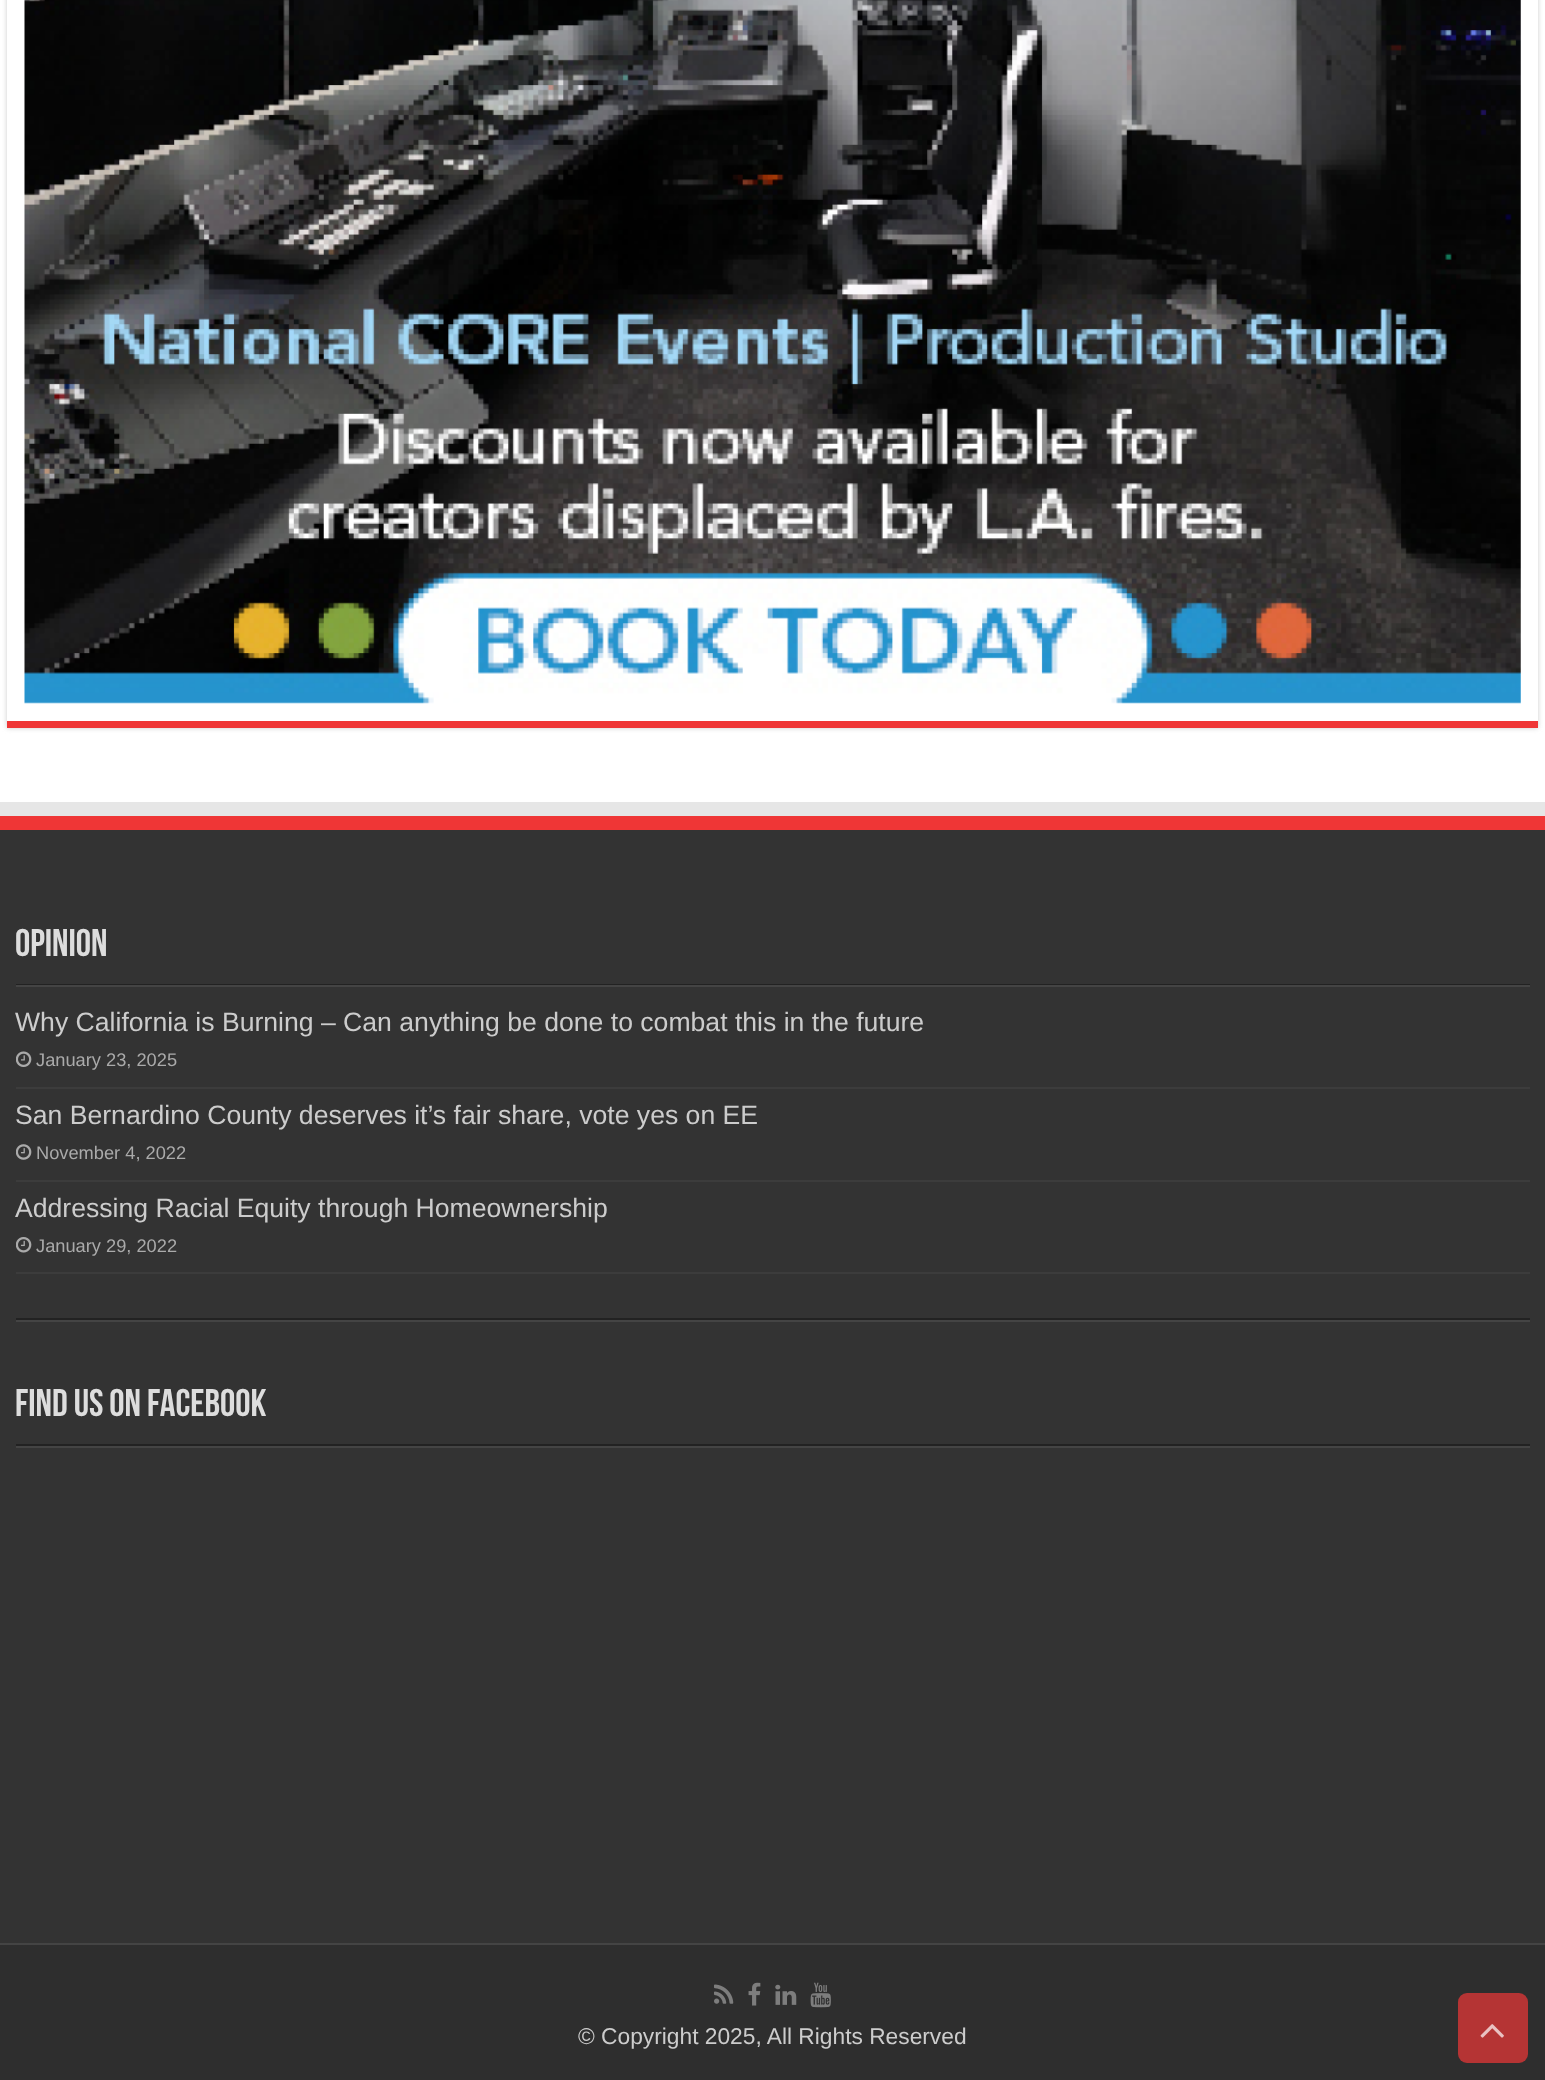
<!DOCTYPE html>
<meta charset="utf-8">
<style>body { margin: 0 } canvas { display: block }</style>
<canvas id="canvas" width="1545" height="2080"></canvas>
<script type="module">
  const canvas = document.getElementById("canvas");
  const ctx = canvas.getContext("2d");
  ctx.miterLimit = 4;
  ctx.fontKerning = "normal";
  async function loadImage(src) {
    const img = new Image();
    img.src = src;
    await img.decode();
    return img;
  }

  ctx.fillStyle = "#ffffff";
  ctx.fillRect(0, 0, 1545, 2080);
  ctx.save();
  ctx.beginPath();
  ctx.moveTo(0, 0);
  ctx.lineTo(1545, 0);
  ctx.lineTo(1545, 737);
  ctx.lineTo(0, 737);
  ctx.closePath();
  ctx.moveTo(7, -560);
  ctx.lineTo(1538, -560);
  ctx.lineTo(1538, 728);
  ctx.lineTo(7, 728);
  ctx.closePath();
  ctx.clip("evenodd");
  ctx.fillStyle = "#cacaca";
  ctx.filter = "blur(2.5px)";
  ctx.beginPath();
  ctx.rect(7, -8, 1531, 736);
  ctx.fill();
  ctx.filter = "none";
  ctx.restore();
  ctx.fillStyle = "#ef3636";
  ctx.fillRect(7, 721, 1531, 7);
  ctx.drawImage(await loadImage("img1.png"), 24, 0, 1497, 704);
  ctx.fillStyle = "#e6e6e6";
  ctx.fillRect(0, 802, 1545, 14);
  ctx.fillStyle = "#333333";
  ctx.fillRect(0, 830, 1545, 1113);
  ctx.fillStyle = "#ef3636";
  ctx.fillRect(0, 816, 1545, 14);
  ctx.fillStyle = "#222222";
  ctx.fillRect(16, 984, 1514, 1);
  ctx.font = "bold 38.5px Bebas Neue";
  ctx.fillStyle = "#dddddd";
  ctx.fillText("Opinion", 15, 956);
  ctx.fillStyle = "#444444";
  ctx.fillRect(16, 985, 1514, 2);
  ctx.fillStyle = "#3c3c3c";
  ctx.fillRect(16, 1087, 1514, 2);
  ctx.font = "26.6px Liberation Sans";
  ctx.fillStyle = "#cccccc";
  ctx.fillText("Why California is Burning – Can anything be done to combat this in the future", 15, 1031);
  ctx.drawImage(await loadImage("img2.png"), 16, 1051, 16, 16);
  ctx.font = "18.25px Liberation Sans";
  ctx.fillStyle = "#aaaaaa";
  ctx.fillText("January 23, 2025", 36, 1066);
  ctx.fillStyle = "#3c3c3c";
  ctx.fillRect(16, 1180, 1514, 2);
  ctx.font = "26.6px Liberation Sans";
  ctx.fillStyle = "#cccccc";
  ctx.fillText("San Bernardino County deserves it’s fair share, vote yes on EE", 15, 1124);
  ctx.drawImage(await loadImage("img3.png"), 16, 1144, 16, 16);
  ctx.font = "18.25px Liberation Sans";
  ctx.fillStyle = "#aaaaaa";
  ctx.fillText("November 4, 2022", 36, 1159);
  ctx.fillStyle = "#3c3c3c";
  ctx.fillRect(16, 1272, 1514, 2);
  ctx.font = "26.6px Liberation Sans";
  ctx.fillStyle = "#cccccc";
  ctx.fillText("Addressing Racial Equity through Homeownership", 15, 1217);
  ctx.drawImage(await loadImage("img4.png"), 16, 1237, 16, 16);
  ctx.font = "18.25px Liberation Sans";
  ctx.fillStyle = "#aaaaaa";
  ctx.fillText("January 29, 2022", 36, 1252);
  ctx.fillStyle = "#222222";
  ctx.fillRect(16, 1318, 1514, 2);
  ctx.fillStyle = "#444444";
  ctx.fillRect(16, 1320, 1514, 2);
  ctx.fillStyle = "#222222";
  ctx.fillRect(16, 1444, 1514, 2);
  ctx.font = "bold 38.5px Bebas Neue";
  ctx.fillStyle = "#dddddd";
  ctx.fillText("Find us on Facebook", 15, 1416);
  ctx.fillStyle = "#444444";
  ctx.fillRect(16, 1446, 1514, 2);
  ctx.fillStyle = "#2e2e2e";
  ctx.fillRect(0, 1945, 1545, 135);
  ctx.fillStyle = "#444444";
  ctx.fillRect(0, 1943, 1545, 2);
  ctx.drawImage(await loadImage("img5.png"), 714, 1984, 20, 20);
  ctx.drawImage(await loadImage("img6.png"), 748, 1982, 13, 24);
  ctx.drawImage(await loadImage("img7.png"), 775, 1984, 22, 21);
  ctx.drawImage(await loadImage("img8.png"), 810, 1982, 21, 26);
  ctx.font = "22.75px Liberation Sans";
  ctx.fillStyle = "#cccccc";
  ctx.fillText("© Copyright 2025, All Rights Reserved", 578, 2044);
  ctx.fillStyle = "#b53434";
  ctx.beginPath();
  ctx.roundRect(1458, 1993, 70, 70, 9);
  ctx.fill();
  ctx.drawImage(await loadImage("img9.png"), 1480, 2024, 24, 14);
</script>
